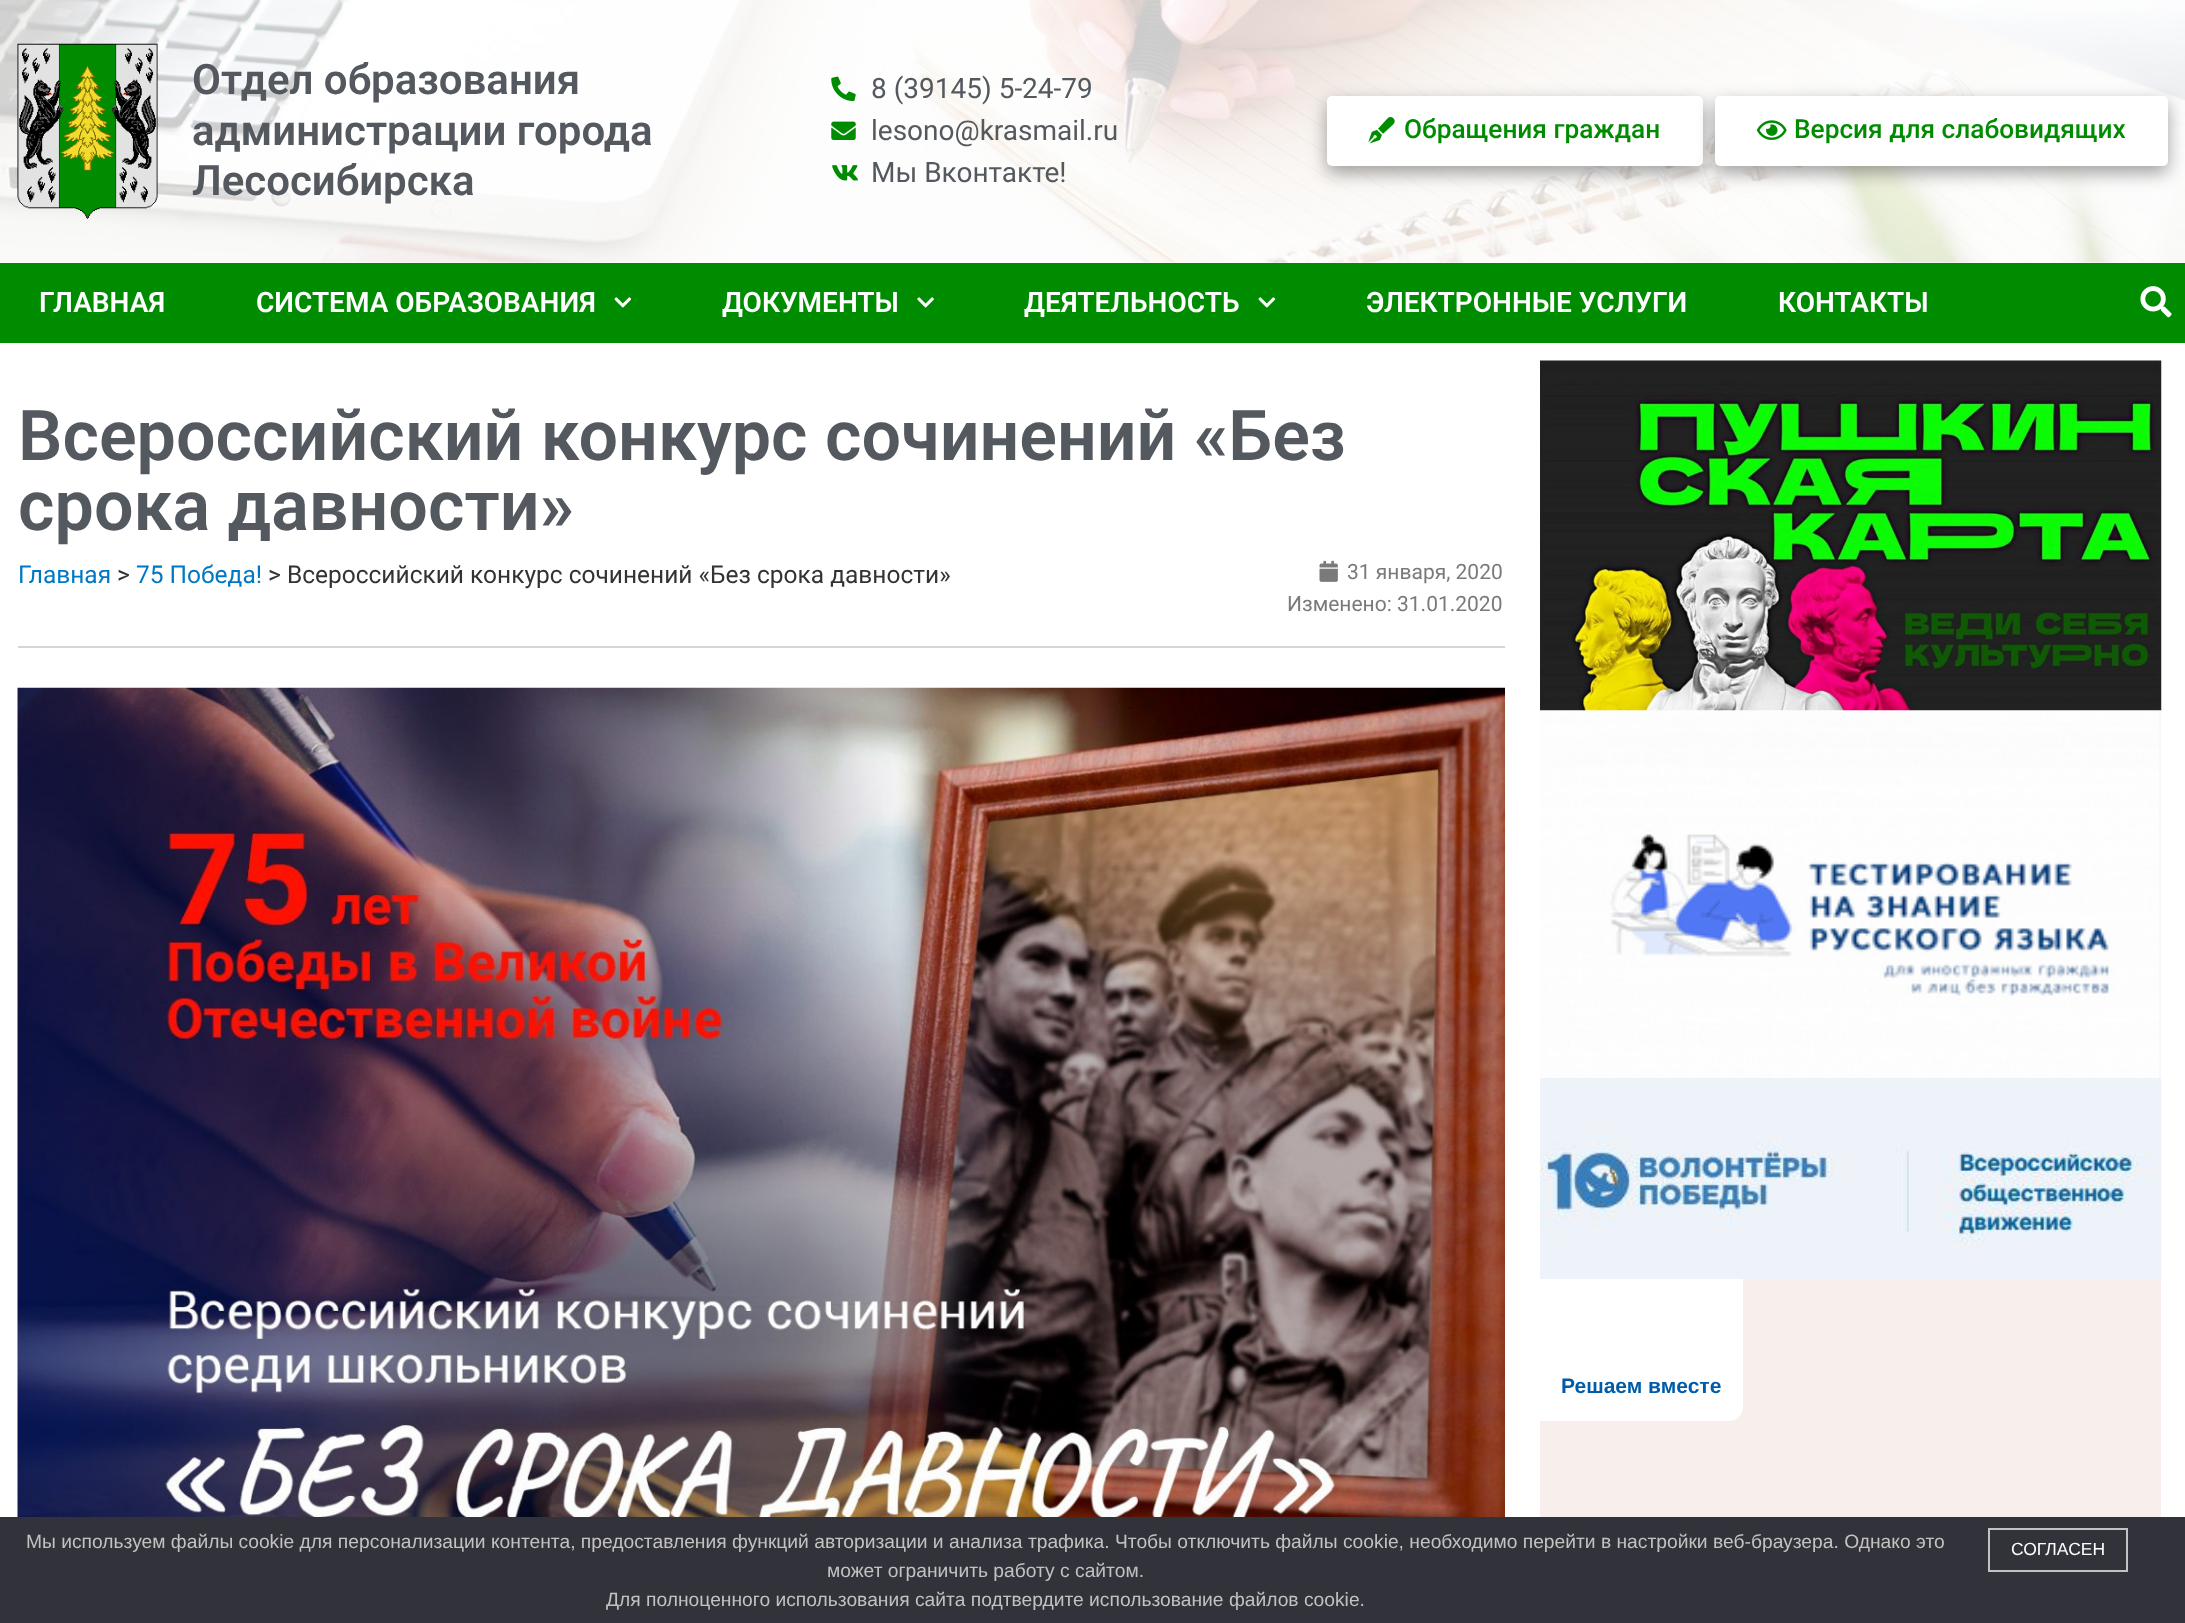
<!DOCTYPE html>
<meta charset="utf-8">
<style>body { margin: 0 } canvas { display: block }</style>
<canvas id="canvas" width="2185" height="1623"></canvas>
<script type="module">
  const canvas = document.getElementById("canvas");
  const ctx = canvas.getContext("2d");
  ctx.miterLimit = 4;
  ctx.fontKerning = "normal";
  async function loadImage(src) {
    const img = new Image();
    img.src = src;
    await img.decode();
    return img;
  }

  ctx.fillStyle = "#ffffff";
  ctx.fillRect(0, 0, 2185, 1623);
  ctx.drawImage(await loadImage("img1.png"), 0, 0, 2185, 263);
  ctx.drawImage(await loadImage("img2.png"), 17, 43, 141, 176);
  ctx.font = "600 42px Roboto";
  ctx.fillStyle = "#54595f";
  ctx.fillText("Отдел образования", 192, 94);
  ctx.fillText("администрации города", 192, 145);
  ctx.fillText("Лесосибирска", 192, 195);
  ctx.drawImage(await loadImage("img3.png"), 831, 76, 25, 26);
  ctx.font = "28px Roboto";
  ctx.fillText("8 (39145) 5-24-79", 871, 98);
  ctx.drawImage(await loadImage("img4.png"), 831, 121, 25, 19);
  ctx.fillText("lesono@krasmail.ru", 871, 140);
  ctx.drawImage(await loadImage("img5.png"), 832, 165, 26, 16);
  ctx.fillText("Мы Вконтакте!", 871, 182);
  ctx.fillStyle = "rgba(0, 0, 0, 0.37)";
  ctx.filter = "blur(9px)";
  ctx.beginPath();
  ctx.roundRect(1327, 103, 376, 70, 5);
  ctx.fill();
  ctx.filter = "none";
  ctx.fillStyle = "#ffffff";
  ctx.beginPath();
  ctx.roundRect(1327, 96, 376, 70, 5);
  ctx.fill();
  ctx.drawImage(await loadImage("img6.png"), 1368, 117, 27, 27);
  ctx.font = "500 26.25px Roboto";
  ctx.fillStyle = "#008c00";
  ctx.fillText("Обращения граждан", 1404, 138);
  ctx.fillStyle = "rgba(0, 0, 0, 0.37)";
  ctx.filter = "blur(9px)";
  ctx.beginPath();
  ctx.roundRect(1715, 103, 453, 70, 5);
  ctx.fill();
  ctx.filter = "none";
  ctx.fillStyle = "#ffffff";
  ctx.beginPath();
  ctx.roundRect(1715, 96, 453, 70, 5);
  ctx.fill();
  ctx.drawImage(await loadImage("img7.png"), 1757, 120, 30, 20);
  ctx.fillStyle = "#008c00";
  ctx.fillText("Версия для слабовидящих", 1794, 138);
  ctx.fillRect(0, 263, 2185, 80);
  ctx.font = "600 28px Roboto";
  ctx.fillStyle = "#ffffff";
  ctx.fillText("ГЛАВНАЯ", 39, 312);
  ctx.fillText("СИСТЕМА ОБРАЗОВАНИЯ", 256, 312);
  ctx.drawImage(await loadImage("img8.png"), 614, 297, 18, 11);
  ctx.fillText("ДОКУМЕНТЫ", 722, 312);
  ctx.drawImage(await loadImage("img9.png"), 917, 297, 17, 11);
  ctx.fillText("ДЕЯТЕЛЬНОСТЬ", 1024, 312);
  ctx.drawImage(await loadImage("img8.png"), 1258, 297, 18, 11);
  ctx.fillText("ЭЛЕКТРОННЫЕ УСЛУГИ", 1366, 312);
  ctx.fillText("КОНТАКТЫ", 1778, 312);
  ctx.drawImage(await loadImage("img10.png"), 2140, 286, 32, 32);
  ctx.font = "600 70px Roboto";
  ctx.fillStyle = "#54595f";
  ctx.fillText("Всероссийский конкурс сочинений «Без", 18, 460);
  ctx.fillText("срока давности»", 18, 530);
  ctx.font = "24.5px Roboto";
  ctx.fillStyle = "#0078c5";
  ctx.fillText("Главная", 18, 583);
  ctx.fillStyle = "#333333";
  ctx.fillText(">", 117, 583);
  ctx.fillStyle = "#0078c5";
  ctx.fillText("75 Победа!", 136, 583);
  ctx.fillStyle = "#333333";
  ctx.fillText("> Всероссийский конкурс сочинений «Без срока давности»", 268, 583);
  ctx.drawImage(await loadImage("img11.png"), 1319, 560, 19, 22);
  ctx.font = "21px Roboto";
  ctx.fillStyle = "#7a7a7a";
  ctx.fillText("31 января, 2020", 1347, 579);
  ctx.fillText("Изменено: 31.01.2020", 1287, 611);
  ctx.fillStyle = "#d5d5d5";
  ctx.fillRect(18, 646, 1487, 2);
  ctx.drawImage(await loadImage("img12.png"), 17, 687, 1488, 830);
  ctx.drawImage(await loadImage("img13.png"), 1540, 360, 622, 351);
  ctx.drawImage(await loadImage("img14.png"), 1540, 710, 621, 368);
  ctx.drawImage(await loadImage("img15.png"), 1540, 1078, 622, 202);
  ctx.fillStyle = "#f8efec";
  ctx.fillRect(1540, 1279, 621, 238);
  ctx.fillStyle = "#ffffff";
  ctx.beginPath();
  ctx.roundRect(1540, 1279, 203, 142, [0, 0, 14, 0]);
  ctx.fill();
  ctx.font = "bold 21px Liberation Sans";
  ctx.fillStyle = "#005ca9";
  ctx.fillText("Решаем вместе", 1561, 1393);
  ctx.fillStyle = "#32323a";
  ctx.fillRect(0, 1517, 2185, 106);
  ctx.font = "19.25px Liberation Sans";
  ctx.fillStyle = "#c2c2c2";
  ctx.fillText("Мы используем файлы cookie для персонализации контента, предоставления функций авторизации и анализа трафика. Чтобы отключить файлы cookie, необходимо перейти в настройки веб-браузера. Однако это", 26, 1548);
  ctx.fillText("может ограничить работу с сайтом.", 827, 1577);
  ctx.fillText("Для полноценного использования сайта подтвердите использование файлов cookie.", 606, 1606);
  ctx.strokeStyle = "#c2c2c2";
  ctx.lineWidth = 2;
  ctx.strokeRect(1989, 1529, 138, 42);
  ctx.font = "17.5px Liberation Sans";
  ctx.fillStyle = "#ffffff";
  ctx.fillText("СОГЛАСЕН", 2011, 1555);
</script>
